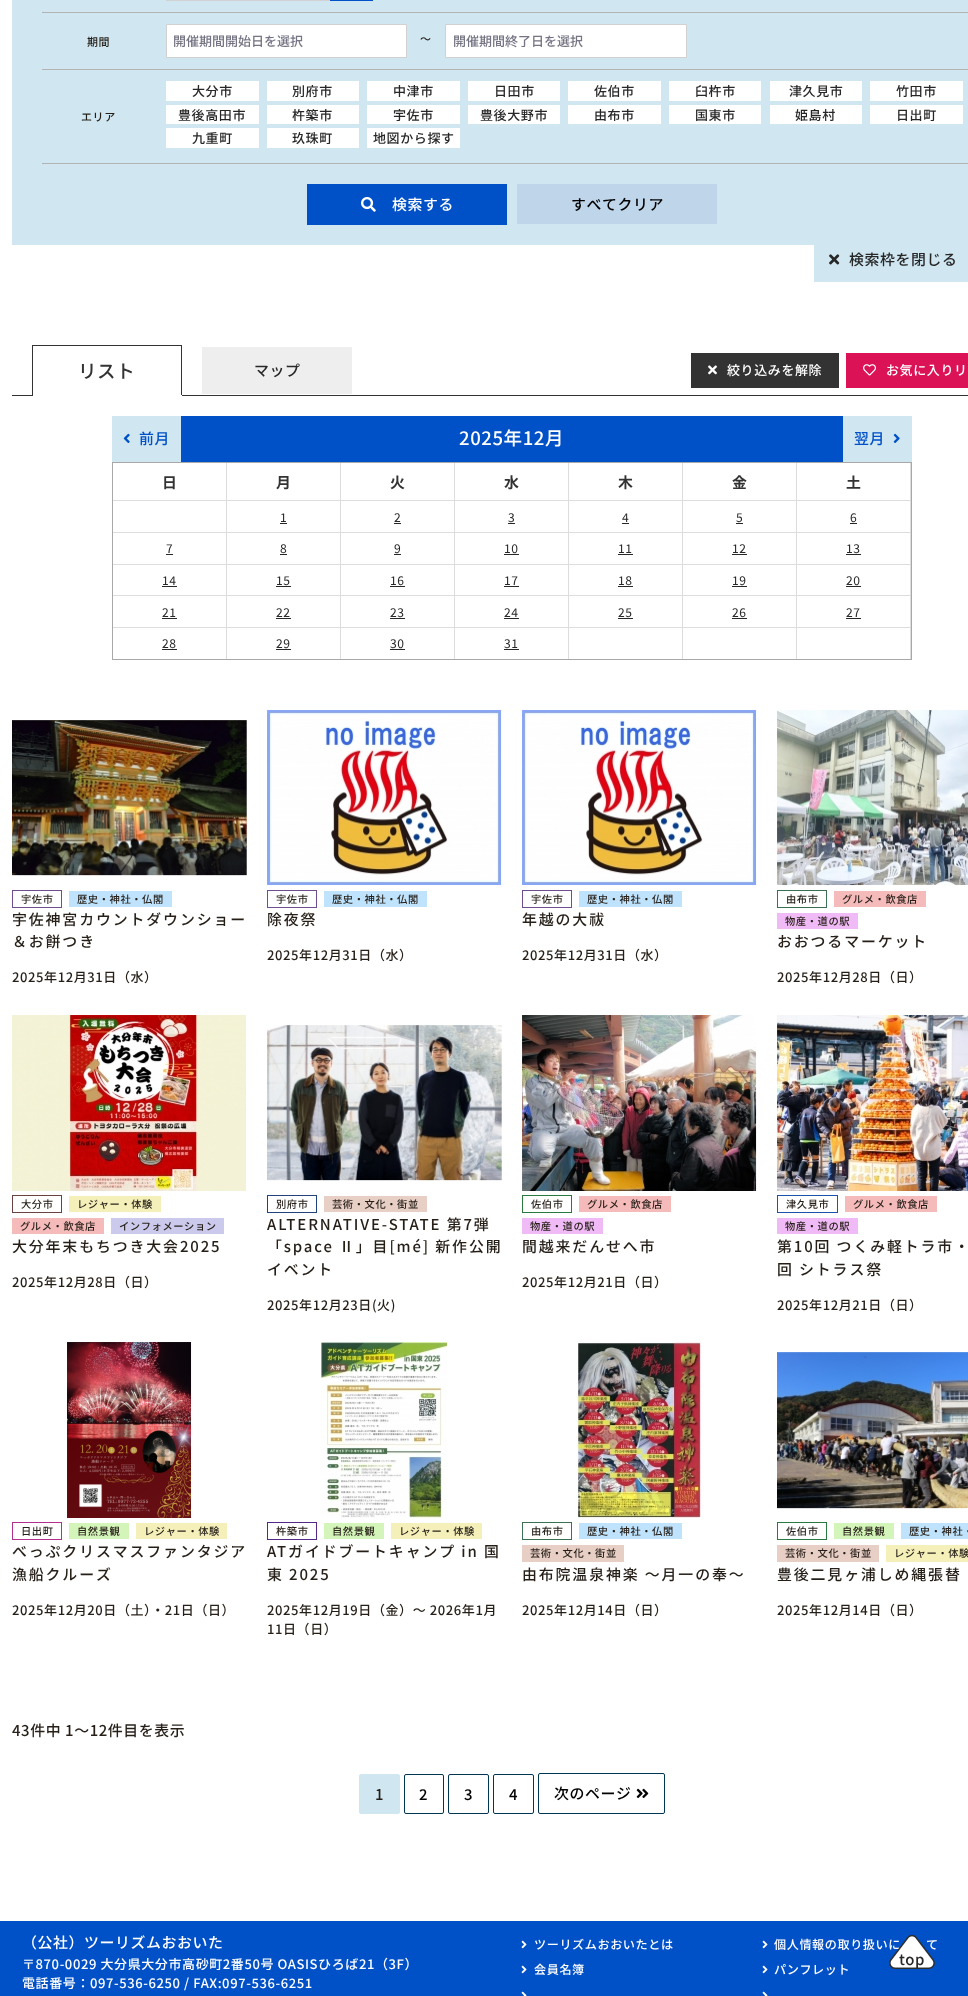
<!DOCTYPE html>
<meta charset="utf-8">
<style>body { margin: 0 } canvas { display: block }</style>
<canvas id="canvas" width="968" height="1996"></canvas>
<script type="module">
  const canvas = document.getElementById("canvas");
  const ctx = canvas.getContext("2d");
  ctx.miterLimit = 4;
  ctx.fontKerning = "normal";
  async function loadImage(src) {
    const img = new Image();
    img.src = src;
    await img.decode();
    return img;
  }

  ctx.fillStyle = "#ffffff";
  ctx.fillRect(0, 0, 968, 1996);
  ctx.fillStyle = "#d0e7f2";
  ctx.fillRect(12, 0, 956, 245);
  ctx.fillStyle = "#b3b3b3";
  ctx.fillRect(42, 12, 926, 1);
  ctx.strokeStyle = "#d1d1d1";
  ctx.strokeRect(166.5, -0.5, 163, 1);
  ctx.fillStyle = "#0050c7";
  ctx.fillRect(330, 0, 43, 1);
  ctx.fillStyle = "#b3b3b3";
  ctx.fillRect(42, 69, 926, 1);
  ctx.letterSpacing = "0.6px";
  ctx.font = "500 11px Noto Sans JP";
  ctx.fillStyle = "#261f18";
  ctx.fillText("期間", 87, 46);
  ctx.fillStyle = "#ffffff";
  ctx.beginPath();
  ctx.rect(166.5, 24.5, 240, 33);
  ctx.fill();
  ctx.stroke();
  ctx.letterSpacing = "0px";
  ctx.font = "500 13px Noto Sans JP";
  ctx.fillStyle = "#747484";
  ctx.fillText("開催期間開始日を選択", 173, 46);
  ctx.letterSpacing = "0.6px";
  ctx.font = "500 11px Noto Sans JP";
  ctx.fillStyle = "#261f18";
  ctx.fillText("～", 420, 43);
  ctx.fillStyle = "#ffffff";
  ctx.beginPath();
  ctx.rect(445.5, 24.5, 241, 33);
  ctx.fill();
  ctx.stroke();
  ctx.letterSpacing = "0px";
  ctx.font = "500 13px Noto Sans JP";
  ctx.fillStyle = "#747484";
  ctx.fillText("開催期間終了日を選択", 453, 46);
  ctx.fillStyle = "#b3b3b3";
  ctx.fillRect(42, 163, 926, 1);
  ctx.letterSpacing = "0.6px";
  ctx.font = "500 11px Noto Sans JP";
  ctx.fillStyle = "#261f18";
  ctx.fillText("エリア", 81, 121);
  ctx.fillStyle = "#ffffff";
  ctx.fillRect(166, 81, 93, 20);
  ctx.font = "500 13px Noto Sans JP";
  ctx.fillStyle = "#272727";
  ctx.fillText("大分市", 192, 96);
  ctx.fillStyle = "#ffffff";
  ctx.fillRect(267, 81, 92, 20);
  ctx.fillStyle = "#272727";
  ctx.fillText("別府市", 292, 96);
  ctx.fillStyle = "#ffffff";
  ctx.fillRect(367, 81, 93, 20);
  ctx.fillStyle = "#272727";
  ctx.fillText("中津市", 393, 96);
  ctx.fillStyle = "#ffffff";
  ctx.fillRect(468, 81, 92, 20);
  ctx.fillStyle = "#272727";
  ctx.fillText("日田市", 494, 96);
  ctx.fillStyle = "#ffffff";
  ctx.fillRect(568, 81, 93, 20);
  ctx.fillStyle = "#272727";
  ctx.fillText("佐伯市", 594, 96);
  ctx.fillStyle = "#ffffff";
  ctx.fillRect(669, 81, 92, 20);
  ctx.fillStyle = "#272727";
  ctx.fillText("臼杵市", 695, 96);
  ctx.fillStyle = "#ffffff";
  ctx.fillRect(770, 81, 92, 20);
  ctx.fillStyle = "#272727";
  ctx.fillText("津久見市", 789, 96);
  ctx.fillStyle = "#ffffff";
  ctx.fillRect(870, 81, 93, 20);
  ctx.fillStyle = "#272727";
  ctx.fillText("竹田市", 896, 96);
  ctx.fillStyle = "#ffffff";
  ctx.fillRect(166, 105, 93, 19);
  ctx.fillStyle = "#272727";
  ctx.fillText("豊後高田市", 178, 120);
  ctx.fillStyle = "#ffffff";
  ctx.fillRect(267, 105, 92, 19);
  ctx.fillStyle = "#272727";
  ctx.fillText("杵築市", 292, 120);
  ctx.fillStyle = "#ffffff";
  ctx.fillRect(367, 105, 93, 19);
  ctx.fillStyle = "#272727";
  ctx.fillText("宇佐市", 393, 120);
  ctx.fillStyle = "#ffffff";
  ctx.fillRect(468, 105, 92, 19);
  ctx.fillStyle = "#272727";
  ctx.fillText("豊後大野市", 480, 120);
  ctx.fillStyle = "#ffffff";
  ctx.fillRect(568, 105, 93, 19);
  ctx.fillStyle = "#272727";
  ctx.fillText("由布市", 594, 120);
  ctx.fillStyle = "#ffffff";
  ctx.fillRect(669, 105, 92, 19);
  ctx.fillStyle = "#272727";
  ctx.fillText("国東市", 695, 120);
  ctx.fillStyle = "#ffffff";
  ctx.fillRect(770, 105, 92, 19);
  ctx.fillStyle = "#272727";
  ctx.fillText("姫島村", 795, 120);
  ctx.fillStyle = "#ffffff";
  ctx.fillRect(870, 105, 93, 19);
  ctx.fillStyle = "#272727";
  ctx.fillText("日出町", 896, 120);
  ctx.fillStyle = "#ffffff";
  ctx.fillRect(166, 128, 93, 20);
  ctx.fillStyle = "#272727";
  ctx.fillText("九重町", 192, 143);
  ctx.fillStyle = "#ffffff";
  ctx.fillRect(267, 128, 92, 20);
  ctx.fillStyle = "#272727";
  ctx.fillText("玖珠町", 292, 143);
  ctx.fillStyle = "#ffffff";
  ctx.fillRect(367, 128, 93, 20);
  ctx.fillStyle = "#272727";
  ctx.fillText("地図から探す", 373, 143);
  ctx.fillStyle = "#0050c7";
  ctx.fillRect(307, 184, 200, 41);
  ctx.drawImage(await loadImage("img1.png"), 361, 197, 15, 15);
  ctx.font = "500 14.9px Noto Sans JP";
  ctx.fillStyle = "#ffffff";
  ctx.fillText("検索する", 392, 210);
  ctx.fillStyle = "#bed5ea";
  ctx.fillRect(517, 184, 200, 40);
  ctx.fillStyle = "#000000";
  ctx.fillText("すべてクリア", 571, 210);
  ctx.fillStyle = "#d0e7f2";
  ctx.fillRect(814, 245, 154, 37);
  ctx.drawImage(await loadImage("img2.png"), 829, 254, 11, 11);
  ctx.fillStyle = "#272727";
  ctx.fillText("検索枠を閉じる", 849, 265);
  ctx.fillStyle = "#333333";
  ctx.fillRect(32, 345, 150, 1);
  ctx.fillRect(12, 395, 956, 1);
  ctx.fillRect(181, 345, 1, 51);
  ctx.fillStyle = "#ffffff";
  ctx.fillRect(32, 395, 150, 1);
  ctx.fillStyle = "#333333";
  ctx.fillRect(32, 345, 1, 51);
  ctx.font = "500 18.5px Noto Sans JP";
  ctx.fillText("リスト", 78, 378);
  ctx.fillStyle = "#eeeeee";
  ctx.fillRect(202, 347, 150, 47);
  ctx.font = "500 14.9px Noto Sans JP";
  ctx.fillStyle = "#272727";
  ctx.fillText("マップ", 254, 376);
  ctx.fillStyle = "#333333";
  ctx.fillRect(691, 353, 148, 35);
  ctx.drawImage(await loadImage("img3.png"), 708, 365, 9, 10);
  ctx.font = "500 13px Noto Sans JP";
  ctx.fillStyle = "#ffffff";
  ctx.fillText("絞り込みを解除", 727, 375);
  ctx.fillStyle = "#db1255";
  ctx.fillRect(846, 353, 122, 35);
  ctx.drawImage(await loadImage("img4.png"), 863, 364, 13, 12);
  ctx.fillStyle = "#ffffff";
  ctx.fillText("お気に入りリ", 886, 375);
  ctx.fillStyle = "#0050c7";
  ctx.fillRect(181, 416, 662, 46);
  ctx.fillStyle = "#d0e7f2";
  ctx.fillRect(112, 416, 69, 46);
  ctx.drawImage(await loadImage("img5.png"), 123, 433, 7, 10);
  ctx.font = "500 14.9px Noto Sans JP";
  ctx.fillStyle = "#0050c7";
  ctx.fillText("前月", 139, 444);
  ctx.font = "500 18.5px Noto Sans JP";
  ctx.fillStyle = "#ffffff";
  ctx.fillText("2025年12月", 459, 445);
  ctx.fillStyle = "#d0e7f2";
  ctx.fillRect(843, 416, 69, 46);
  ctx.font = "500 14.9px Noto Sans JP";
  ctx.fillStyle = "#0050c7";
  ctx.fillText("翌月", 854, 444);
  ctx.drawImage(await loadImage("img6.png"), 893, 433, 7, 10);
  ctx.strokeStyle = "#a8a8a8";
  ctx.strokeRect(112.5, 462.5, 799, 197);
  ctx.fillStyle = "#dddddd";
  ctx.fillRect(226, 463, 1, 37);
  ctx.font = "bold 14.9px Noto Sans JP";
  ctx.fillStyle = "#333333";
  ctx.fillText("日", 162, 488);
  ctx.fillStyle = "#dddddd";
  ctx.fillRect(340, 463, 1, 37);
  ctx.fillStyle = "#333333";
  ctx.fillText("月", 276, 488);
  ctx.fillStyle = "#dddddd";
  ctx.fillRect(454, 463, 1, 37);
  ctx.fillStyle = "#333333";
  ctx.fillText("火", 390, 488);
  ctx.fillStyle = "#dddddd";
  ctx.fillRect(568, 463, 1, 37);
  ctx.fillStyle = "#333333";
  ctx.fillText("水", 504, 488);
  ctx.fillStyle = "#dddddd";
  ctx.fillRect(682, 463, 1, 37);
  ctx.fillStyle = "#333333";
  ctx.fillText("木", 618, 488);
  ctx.fillStyle = "#dddddd";
  ctx.fillRect(796, 463, 1, 37);
  ctx.fillStyle = "#333333";
  ctx.fillText("金", 732, 488);
  ctx.fillStyle = "#dddddd";
  ctx.fillRect(910, 463, 1, 37);
  ctx.fillStyle = "#333333";
  ctx.fillText("土", 846, 488);
  ctx.fillStyle = "#dddddd";
  ctx.fillRect(113, 500, 798, 1);
  ctx.fillRect(226, 500, 1, 32);
  ctx.fillRect(340, 500, 1, 32);
  ctx.font = "12.1px Noto Sans JP";
  ctx.fillStyle = "#272727";
  ctx.fillText("1", 280, 522);
  ctx.fillRect(280, 523, 7, 1);
  ctx.fillStyle = "#dddddd";
  ctx.fillRect(454, 500, 1, 32);
  ctx.fillStyle = "#272727";
  ctx.fillText("2", 394, 522);
  ctx.fillRect(394, 523, 7, 1);
  ctx.fillStyle = "#dddddd";
  ctx.fillRect(568, 500, 1, 32);
  ctx.fillStyle = "#272727";
  ctx.fillText("3", 508, 522);
  ctx.fillRect(508, 523, 7, 1);
  ctx.fillStyle = "#dddddd";
  ctx.fillRect(682, 500, 1, 32);
  ctx.fillStyle = "#272727";
  ctx.fillText("4", 622, 522);
  ctx.fillRect(622, 523, 7, 1);
  ctx.fillStyle = "#dddddd";
  ctx.fillRect(796, 500, 1, 32);
  ctx.fillStyle = "#272727";
  ctx.fillText("5", 736, 522);
  ctx.fillRect(736, 523, 7, 1);
  ctx.fillStyle = "#dddddd";
  ctx.fillRect(910, 500, 1, 32);
  ctx.fillStyle = "#272727";
  ctx.fillText("6", 850, 522);
  ctx.fillRect(850, 523, 7, 1);
  ctx.fillStyle = "#dddddd";
  ctx.fillRect(113, 532, 798, 1);
  ctx.fillRect(226, 532, 1, 32);
  ctx.fillStyle = "#272727";
  ctx.fillText("7", 166, 553);
  ctx.fillRect(166, 554, 7, 1);
  ctx.fillStyle = "#dddddd";
  ctx.fillRect(340, 532, 1, 32);
  ctx.fillStyle = "#272727";
  ctx.fillText("8", 280, 553);
  ctx.fillRect(280, 554, 7, 1);
  ctx.fillStyle = "#dddddd";
  ctx.fillRect(454, 532, 1, 32);
  ctx.fillStyle = "#272727";
  ctx.fillText("9", 394, 553);
  ctx.fillRect(394, 554, 7, 1);
  ctx.fillStyle = "#dddddd";
  ctx.fillRect(568, 532, 1, 32);
  ctx.fillStyle = "#272727";
  ctx.fillText("10", 504, 553);
  ctx.fillRect(504, 554, 15, 1);
  ctx.fillStyle = "#dddddd";
  ctx.fillRect(682, 532, 1, 32);
  ctx.fillStyle = "#272727";
  ctx.fillText("11", 618, 553);
  ctx.fillRect(618, 554, 15, 1);
  ctx.fillStyle = "#dddddd";
  ctx.fillRect(796, 532, 1, 32);
  ctx.fillStyle = "#272727";
  ctx.fillText("12", 732, 553);
  ctx.fillRect(732, 554, 15, 1);
  ctx.fillStyle = "#dddddd";
  ctx.fillRect(910, 532, 1, 32);
  ctx.fillStyle = "#272727";
  ctx.fillText("13", 846, 553);
  ctx.fillRect(846, 554, 15, 1);
  ctx.fillStyle = "#dddddd";
  ctx.fillRect(113, 564, 798, 1);
  ctx.fillRect(226, 564, 1, 31);
  ctx.fillStyle = "#272727";
  ctx.fillText("14", 162, 585);
  ctx.fillRect(162, 586, 15, 1);
  ctx.fillStyle = "#dddddd";
  ctx.fillRect(340, 564, 1, 31);
  ctx.fillStyle = "#272727";
  ctx.fillText("15", 276, 585);
  ctx.fillRect(276, 586, 15, 1);
  ctx.fillStyle = "#dddddd";
  ctx.fillRect(454, 564, 1, 31);
  ctx.fillStyle = "#272727";
  ctx.fillText("16", 390, 585);
  ctx.fillRect(390, 586, 15, 1);
  ctx.fillStyle = "#dddddd";
  ctx.fillRect(568, 564, 1, 31);
  ctx.fillStyle = "#272727";
  ctx.fillText("17", 504, 585);
  ctx.fillRect(504, 586, 15, 1);
  ctx.fillStyle = "#dddddd";
  ctx.fillRect(682, 564, 1, 31);
  ctx.fillStyle = "#272727";
  ctx.fillText("18", 618, 585);
  ctx.fillRect(618, 586, 15, 1);
  ctx.fillStyle = "#dddddd";
  ctx.fillRect(796, 564, 1, 31);
  ctx.fillStyle = "#272727";
  ctx.fillText("19", 732, 585);
  ctx.fillRect(732, 586, 15, 1);
  ctx.fillStyle = "#dddddd";
  ctx.fillRect(910, 564, 1, 31);
  ctx.fillStyle = "#272727";
  ctx.fillText("20", 846, 585);
  ctx.fillRect(846, 586, 15, 1);
  ctx.fillStyle = "#dddddd";
  ctx.fillRect(113, 595, 798, 1);
  ctx.fillRect(226, 595, 1, 32);
  ctx.fillStyle = "#272727";
  ctx.fillText("21", 162, 617);
  ctx.fillRect(162, 618, 15, 1);
  ctx.fillStyle = "#dddddd";
  ctx.fillRect(340, 595, 1, 32);
  ctx.fillStyle = "#272727";
  ctx.fillText("22", 276, 617);
  ctx.fillRect(276, 618, 15, 1);
  ctx.fillStyle = "#dddddd";
  ctx.fillRect(454, 595, 1, 32);
  ctx.fillStyle = "#272727";
  ctx.fillText("23", 390, 617);
  ctx.fillRect(390, 618, 15, 1);
  ctx.fillStyle = "#dddddd";
  ctx.fillRect(568, 595, 1, 32);
  ctx.fillStyle = "#272727";
  ctx.fillText("24", 504, 617);
  ctx.fillRect(504, 618, 15, 1);
  ctx.fillStyle = "#dddddd";
  ctx.fillRect(682, 595, 1, 32);
  ctx.fillStyle = "#272727";
  ctx.fillText("25", 618, 617);
  ctx.fillRect(618, 618, 15, 1);
  ctx.fillStyle = "#dddddd";
  ctx.fillRect(796, 595, 1, 32);
  ctx.fillStyle = "#272727";
  ctx.fillText("26", 732, 617);
  ctx.fillRect(732, 618, 15, 1);
  ctx.fillStyle = "#dddddd";
  ctx.fillRect(910, 595, 1, 32);
  ctx.fillStyle = "#272727";
  ctx.fillText("27", 846, 617);
  ctx.fillRect(846, 618, 15, 1);
  ctx.fillStyle = "#dddddd";
  ctx.fillRect(113, 627, 798, 1);
  ctx.fillRect(226, 627, 1, 32);
  ctx.fillStyle = "#272727";
  ctx.fillText("28", 162, 648);
  ctx.fillRect(162, 649, 15, 1);
  ctx.fillStyle = "#dddddd";
  ctx.fillRect(340, 627, 1, 32);
  ctx.fillStyle = "#272727";
  ctx.fillText("29", 276, 648);
  ctx.fillRect(276, 649, 15, 1);
  ctx.fillStyle = "#dddddd";
  ctx.fillRect(454, 627, 1, 32);
  ctx.fillStyle = "#272727";
  ctx.fillText("30", 390, 648);
  ctx.fillRect(390, 649, 15, 1);
  ctx.fillStyle = "#dddddd";
  ctx.fillRect(568, 627, 1, 32);
  ctx.fillStyle = "#272727";
  ctx.fillText("31", 504, 648);
  ctx.fillRect(504, 649, 15, 1);
  ctx.fillStyle = "#dddddd";
  ctx.fillRect(682, 627, 1, 32);
  ctx.fillRect(796, 627, 1, 32);
  ctx.fillRect(910, 627, 1, 32);
  ctx.drawImage(await loadImage("img7.png"), 12, 720, 235, 156);
  ctx.strokeStyle = "#704d8f";
  ctx.strokeRect(12.5, 890.5, 49, 17);
  ctx.font = "500 10.25px Noto Sans JP";
  ctx.fillStyle = "#261f18";
  ctx.fillText("宇佐市", 21, 903);
  ctx.fillStyle = "#bfe3fd";
  ctx.fillRect(69, 891, 103, 16);
  ctx.fillStyle = "#261f18";
  ctx.fillText("歴史・神社・仏閣", 77, 903);
  ctx.letterSpacing = "1.9px";
  ctx.font = "500 14.9px Noto Sans JP";
  ctx.fillText("宇佐神宮カウントダウンショー", 12, 925);
  ctx.fillText("＆お餅つき", 12, 947);
  ctx.letterSpacing = "0.6px";
  ctx.font = "500 13px Noto Sans JP";
  ctx.fillText("2025年12月31日（水）", 12, 982);
  ctx.drawImage(await loadImage("img8.png"), 267, 710, 235, 175);
  ctx.strokeRect(267.5, 890.5, 49, 17);
  ctx.font = "500 10.25px Noto Sans JP";
  ctx.fillText("宇佐市", 276, 903);
  ctx.fillStyle = "#bfe3fd";
  ctx.fillRect(324, 891, 103, 16);
  ctx.fillStyle = "#261f18";
  ctx.fillText("歴史・神社・仏閣", 332, 903);
  ctx.letterSpacing = "1.9px";
  ctx.font = "500 14.9px Noto Sans JP";
  ctx.fillText("除夜祭", 267, 925);
  ctx.letterSpacing = "0.6px";
  ctx.font = "500 13px Noto Sans JP";
  ctx.fillText("2025年12月31日（水）", 267, 960);
  ctx.drawImage(await loadImage("img8.png"), 522, 710, 235, 175);
  ctx.strokeRect(522.5, 890.5, 49, 17);
  ctx.font = "500 10.25px Noto Sans JP";
  ctx.fillText("宇佐市", 531, 903);
  ctx.fillStyle = "#bfe3fd";
  ctx.fillRect(579, 891, 103, 16);
  ctx.fillStyle = "#261f18";
  ctx.fillText("歴史・神社・仏閣", 587, 903);
  ctx.letterSpacing = "1.9px";
  ctx.font = "500 14.9px Noto Sans JP";
  ctx.fillText("年越の大祓", 522, 925);
  ctx.letterSpacing = "0.6px";
  ctx.font = "500 13px Noto Sans JP";
  ctx.fillText("2025年12月31日（水）", 522, 960);
  ctx.drawImage(await loadImage("img9.png"), 777, 710, 191, 176);
  ctx.strokeStyle = "#3b7052";
  ctx.strokeRect(777.5, 890.5, 49, 17);
  ctx.font = "500 10.25px Noto Sans JP";
  ctx.fillText("由布市", 786, 903);
  ctx.fillStyle = "#f5baba";
  ctx.fillRect(834, 891, 92, 16);
  ctx.fillStyle = "#261f18";
  ctx.fillText("グルメ・飲食店", 842, 903);
  ctx.fillStyle = "#efbaf5";
  ctx.fillRect(777, 913, 81, 16);
  ctx.fillStyle = "#261f18";
  ctx.fillText("物産・道の駅", 785, 925);
  ctx.letterSpacing = "1.9px";
  ctx.font = "500 14.9px Noto Sans JP";
  ctx.fillText("おおつるマーケット", 777, 947);
  ctx.letterSpacing = "0.6px";
  ctx.font = "500 13px Noto Sans JP";
  ctx.fillText("2025年12月28日（日）", 777, 982);
  ctx.drawImage(await loadImage("img10.png"), 12, 1015, 234, 176);
  ctx.strokeStyle = "#6b4141";
  ctx.strokeRect(12.5, 1195.5, 49, 17);
  ctx.font = "500 10.25px Noto Sans JP";
  ctx.fillText("大分市", 21, 1208);
  ctx.fillStyle = "#f5f0ba";
  ctx.fillRect(69, 1196, 92, 16);
  ctx.fillStyle = "#261f18";
  ctx.fillText("レジャー・体験", 77, 1208);
  ctx.fillStyle = "#f5baba";
  ctx.fillRect(12, 1218, 92, 16);
  ctx.fillStyle = "#261f18";
  ctx.fillText("グルメ・飲食店", 20, 1230);
  ctx.fillStyle = "#cbcaec";
  ctx.fillRect(111, 1218, 113, 16);
  ctx.fillStyle = "#261f18";
  ctx.fillText("インフォメーション", 119, 1230);
  ctx.letterSpacing = "1.9px";
  ctx.font = "500 14.9px Noto Sans JP";
  ctx.fillText("大分年末もちつき大会2025", 12, 1252);
  ctx.letterSpacing = "0.6px";
  ctx.font = "500 13px Noto Sans JP";
  ctx.fillText("2025年12月28日（日）", 12, 1287);
  ctx.drawImage(await loadImage("img11.png"), 267, 1025, 235, 156);
  ctx.strokeStyle = "#20427d";
  ctx.strokeRect(267.5, 1195.5, 49, 17);
  ctx.font = "500 10.25px Noto Sans JP";
  ctx.fillText("別府市", 276, 1208);
  ctx.fillStyle = "#e7cfc6";
  ctx.fillRect(324, 1196, 103, 16);
  ctx.fillStyle = "#261f18";
  ctx.fillText("芸術・文化・街並", 332, 1208);
  ctx.letterSpacing = "1.9px";
  ctx.font = "500 14.9px Noto Sans JP";
  ctx.fillText("ALTERNATIVE-STATE 第7弾", 267, 1230);
  ctx.fillText("「space Ⅱ」目[mé] 新作公開", 267, 1252);
  ctx.fillText("イベント", 267, 1275);
  ctx.letterSpacing = "0.6px";
  ctx.font = "500 13px Noto Sans JP";
  ctx.fillText("2025年12月23日(火)", 267, 1310);
  ctx.drawImage(await loadImage("img12.png"), 522, 1015, 235, 176);
  ctx.strokeStyle = "#287a3e";
  ctx.strokeRect(522.5, 1195.5, 49, 17);
  ctx.font = "500 10.25px Noto Sans JP";
  ctx.fillText("佐伯市", 531, 1208);
  ctx.fillStyle = "#f5baba";
  ctx.fillRect(579, 1196, 92, 16);
  ctx.fillStyle = "#261f18";
  ctx.fillText("グルメ・飲食店", 587, 1208);
  ctx.fillStyle = "#efbaf5";
  ctx.fillRect(522, 1218, 81, 16);
  ctx.fillStyle = "#261f18";
  ctx.fillText("物産・道の駅", 530, 1230);
  ctx.letterSpacing = "1.9px";
  ctx.font = "500 14.9px Noto Sans JP";
  ctx.fillText("間越来だんせへ市", 522, 1252);
  ctx.letterSpacing = "0.6px";
  ctx.font = "500 13px Noto Sans JP";
  ctx.fillText("2025年12月21日（日）", 522, 1287);
  ctx.drawImage(await loadImage("img13.png"), 777, 1015, 191, 176);
  ctx.strokeStyle = "#1953aa";
  ctx.strokeRect(777.5, 1195.5, 60, 17);
  ctx.font = "500 10.25px Noto Sans JP";
  ctx.fillText("津久見市", 786, 1208);
  ctx.fillStyle = "#f5baba";
  ctx.fillRect(845, 1196, 92, 16);
  ctx.fillStyle = "#261f18";
  ctx.fillText("グルメ・飲食店", 853, 1208);
  ctx.fillStyle = "#efbaf5";
  ctx.fillRect(777, 1218, 81, 16);
  ctx.fillStyle = "#261f18";
  ctx.fillText("物産・道の駅", 785, 1230);
  ctx.letterSpacing = "1.9px";
  ctx.font = "500 14.9px Noto Sans JP";
  ctx.fillText("第10回 つくみ軽トラ市・", 777, 1252);
  ctx.fillText("回 シトラス祭", 777, 1275);
  ctx.letterSpacing = "0.6px";
  ctx.font = "500 13px Noto Sans JP";
  ctx.fillText("2025年12月21日（日）", 777, 1310);
  ctx.drawImage(await loadImage("img14.png"), 67, 1342, 125, 176);
  ctx.strokeStyle = "#b23190";
  ctx.strokeRect(12.5, 1522.5, 49, 17);
  ctx.font = "500 10.25px Noto Sans JP";
  ctx.fillText("日出町", 21, 1535);
  ctx.fillStyle = "#d4f5ba";
  ctx.fillRect(69, 1523, 60, 16);
  ctx.fillStyle = "#261f18";
  ctx.fillText("自然景観", 77, 1535);
  ctx.fillStyle = "#f5f0ba";
  ctx.fillRect(136, 1523, 91, 16);
  ctx.fillStyle = "#261f18";
  ctx.fillText("レジャー・体験", 144, 1535);
  ctx.letterSpacing = "1.9px";
  ctx.font = "500 14.9px Noto Sans JP";
  ctx.fillText("べっぷクリスマスファンタジア", 12, 1557);
  ctx.fillText("漁船クルーズ", 12, 1580);
  ctx.letterSpacing = "0.6px";
  ctx.font = "500 13px Noto Sans JP";
  ctx.fillText("2025年12月20日（土）・21日（日）", 12, 1615);
  ctx.drawImage(await loadImage("img15.png"), 321, 1342, 126, 176);
  ctx.strokeStyle = "#562988";
  ctx.strokeRect(267.5, 1522.5, 49, 17);
  ctx.font = "500 10.25px Noto Sans JP";
  ctx.fillText("杵築市", 276, 1535);
  ctx.fillStyle = "#d4f5ba";
  ctx.fillRect(324, 1523, 60, 16);
  ctx.fillStyle = "#261f18";
  ctx.fillText("自然景観", 332, 1535);
  ctx.fillStyle = "#f5f0ba";
  ctx.fillRect(391, 1523, 91, 16);
  ctx.fillStyle = "#261f18";
  ctx.fillText("レジャー・体験", 399, 1535);
  ctx.letterSpacing = "1.9px";
  ctx.font = "500 14.9px Noto Sans JP";
  ctx.fillText("ATガイドブートキャンプ in 国", 267, 1557);
  ctx.fillText("東 2025", 267, 1580);
  ctx.letterSpacing = "0.6px";
  ctx.font = "500 13px Noto Sans JP";
  ctx.fillText("2025年12月19日（金）～ 2026年1月", 267, 1615);
  ctx.fillText("11日（日）", 267, 1634);
  ctx.drawImage(await loadImage("img16.png"), 577, 1342, 124, 176);
  ctx.strokeStyle = "#3b7052";
  ctx.strokeRect(522.5, 1522.5, 49, 17);
  ctx.font = "500 10.25px Noto Sans JP";
  ctx.fillText("由布市", 531, 1535);
  ctx.fillStyle = "#bfe3fd";
  ctx.fillRect(579, 1523, 103, 16);
  ctx.fillStyle = "#261f18";
  ctx.fillText("歴史・神社・仏閣", 587, 1535);
  ctx.fillStyle = "#e7cfc6";
  ctx.fillRect(522, 1545, 102, 17);
  ctx.fillStyle = "#261f18";
  ctx.fillText("芸術・文化・街並", 530, 1557);
  ctx.letterSpacing = "1.9px";
  ctx.font = "500 14.9px Noto Sans JP";
  ctx.fillText("由布院温泉神楽 ～月一の奉～", 522, 1580);
  ctx.letterSpacing = "0.6px";
  ctx.font = "500 13px Noto Sans JP";
  ctx.fillText("2025年12月14日（日）", 522, 1615);
  ctx.drawImage(await loadImage("img17.png"), 777, 1352, 191, 157);
  ctx.strokeStyle = "#287a3e";
  ctx.strokeRect(777.5, 1522.5, 49, 17);
  ctx.font = "500 10.25px Noto Sans JP";
  ctx.fillText("佐伯市", 786, 1535);
  ctx.fillStyle = "#d4f5ba";
  ctx.fillRect(834, 1523, 60, 16);
  ctx.fillStyle = "#261f18";
  ctx.fillText("自然景観", 842, 1535);
  ctx.fillStyle = "#bfe3fd";
  ctx.fillRect(901, 1523, 67, 16);
  ctx.fillStyle = "#261f18";
  ctx.fillText("歴史・神社・", 909, 1535);
  ctx.fillStyle = "#e7cfc6";
  ctx.fillRect(777, 1545, 102, 17);
  ctx.fillStyle = "#261f18";
  ctx.fillText("芸術・文化・街並", 785, 1557);
  ctx.fillStyle = "#f5f0ba";
  ctx.fillRect(886, 1545, 82, 17);
  ctx.fillStyle = "#261f18";
  ctx.fillText("レジャー・体験", 894, 1557);
  ctx.letterSpacing = "1.9px";
  ctx.font = "500 14.9px Noto Sans JP";
  ctx.fillText("豊後二見ヶ浦しめ縄張替", 777, 1580);
  ctx.letterSpacing = "0.6px";
  ctx.font = "500 13px Noto Sans JP";
  ctx.fillText("2025年12月14日（日）", 777, 1615);
  ctx.font = "500 14.9px Noto Sans JP";
  ctx.fillText("43件中 1～12件目を表示", 12, 1736);
  ctx.fillStyle = "#d0e7f2";
  ctx.beginPath();
  ctx.roundRect(359.5, 1774.5, 40, 39, 1.5);
  ctx.fill();
  ctx.strokeStyle = "#d0e7f2";
  ctx.stroke();
  ctx.fillStyle = "#261f18";
  ctx.fillText("1", 375, 1800);
  ctx.beginPath();
  ctx.roundRect(404.5, 1774.5, 39, 39, 1.5);
  ctx.strokeStyle = "#003652";
  ctx.stroke();
  ctx.fillStyle = "#000000";
  ctx.fillText("2", 419, 1800);
  ctx.beginPath();
  ctx.roundRect(448.5, 1774.5, 40, 39, 1.5);
  ctx.stroke();
  ctx.fillText("3", 464, 1800);
  ctx.beginPath();
  ctx.roundRect(493.5, 1774.5, 40, 39, 1.5);
  ctx.stroke();
  ctx.fillText("4", 509, 1800);
  ctx.beginPath();
  ctx.roundRect(538.5, 1773.5, 126, 40, 1.5);
  ctx.stroke();
  ctx.fillText("次のページ", 554, 1799);
  ctx.drawImage(await loadImage("img18.png"), 636, 1788, 13, 10);
  ctx.fillStyle = "#0050c7";
  ctx.fillRect(0, 1921, 968, 75);
  ctx.fillStyle = "#ffffff";
  ctx.fillText("（公社）ツーリズムおおいた", 22, 1948);
  ctx.font = "500 13px Noto Sans JP";
  ctx.fillText("〒870-0029 大分県大分市高砂町2番50号 OASISひろば21（3F）", 22, 1969);
  ctx.fillText("電話番号：097-536-6250 / FAX:097-536-6251", 22, 1988);
  ctx.drawImage(await loadImage("img19.png"), 521, 1940, 6, 9);
  ctx.font = "500 12.1px Noto Sans JP";
  ctx.fillText("ツーリズムおおいたとは", 534, 1949);
  ctx.drawImage(await loadImage("img19.png"), 762, 1940, 6, 9);
  ctx.fillText("個人情報の取り扱いに", 774, 1949);
  ctx.fillText("て", 926, 1949);
  ctx.drawImage(await loadImage("img19.png"), 521, 1965, 6, 9);
  ctx.fillText("会員名簿", 534, 1974);
  ctx.drawImage(await loadImage("img19.png"), 762, 1965, 6, 9);
  ctx.fillText("パンフレット", 774, 1974);
  ctx.drawImage(await loadImage("img20.png"), 521, 1991, 6, 5);
  ctx.drawImage(await loadImage("img20.png"), 762, 1991, 6, 5);
  ctx.drawImage(await loadImage("img21.png"), 889, 1934, 46, 35);
  ctx.font = "500 14.9px Noto Sans JP";
  ctx.fillStyle = "#272727";
  ctx.fillText("top", 899, 1965);
</script>
